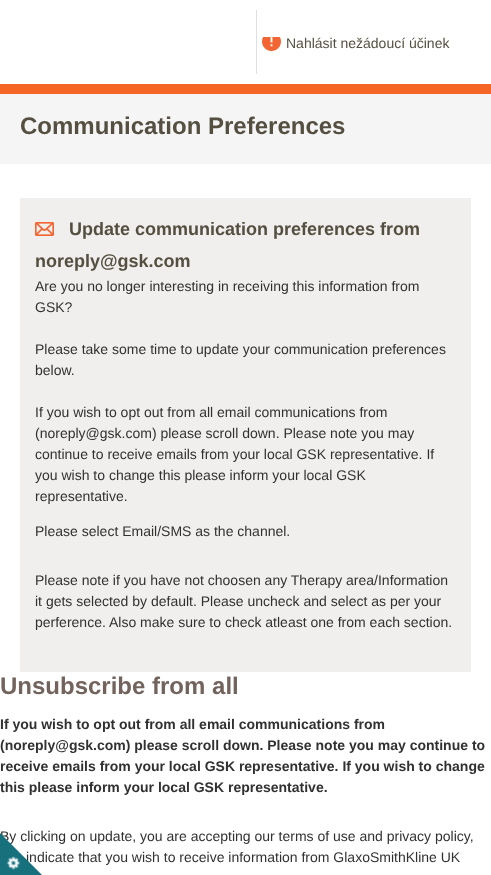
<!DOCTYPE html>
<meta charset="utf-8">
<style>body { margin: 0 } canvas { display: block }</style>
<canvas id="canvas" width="491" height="875"></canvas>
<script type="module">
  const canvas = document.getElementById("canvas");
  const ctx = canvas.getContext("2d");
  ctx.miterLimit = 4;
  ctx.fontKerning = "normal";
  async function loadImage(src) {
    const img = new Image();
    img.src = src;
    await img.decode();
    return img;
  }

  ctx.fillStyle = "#ffffff";
  ctx.fillRect(0, 0, 491, 875);
  ctx.fillStyle = "#f56526";
  ctx.fillRect(0, 84, 491, 10);
  ctx.fillStyle = "#dfdfdf";
  ctx.fillRect(256, 10, 1, 64);
  ctx.drawImage(await loadImage("img1.png"), 262, 37, 19, 14);
  ctx.font = "14px Liberation Sans";
  ctx.fillStyle = "#544f40";
  ctx.fillText("Nahlásit nežádoucí účinek", 286, 48);
  ctx.fillStyle = "#f5f5f5";
  ctx.fillRect(0, 94, 491, 70);
  ctx.font = "bold 24px Liberation Sans";
  ctx.fillStyle = "#544f40";
  ctx.fillText("Communication Preferences", 20, 134);
  ctx.fillStyle = "#f0efed";
  ctx.fillRect(20, 198, 451, 474);
  ctx.drawImage(await loadImage("img2.png"), 35, 222, 19, 14);
  ctx.font = "bold 18px Liberation Sans";
  ctx.fillStyle = "#544f40";
  ctx.fillText("Update communication preferences from", 69, 235);
  ctx.fillText("noreply@gsk.com", 35, 267);
  ctx.font = "14px Liberation Sans";
  ctx.fillStyle = "#323131";
  ctx.fillText("Are you no longer interesting in receiving this information from", 35, 291);
  ctx.fillText("GSK?", 35, 312);
  ctx.fillText("Please take some time to update your communication preferences", 35, 354);
  ctx.fillText("below.", 35, 375);
  ctx.fillText("If you wish to opt out from all email communications from", 35, 417);
  ctx.fillText("(noreply@gsk.com) please scroll down. Please note you may", 35, 438);
  ctx.fillText("continue to receive emails from your local GSK representative. If", 35, 459);
  ctx.fillText("you wish to change this please inform your local GSK", 35, 480);
  ctx.fillText("representative.", 35, 501);
  ctx.fillText("Please select Email/SMS as the channel.", 35, 536);
  ctx.fillText("Please note if you have not choosen any Therapy area/Information", 35, 585);
  ctx.fillText("it gets selected by default. Please uncheck and select as per your", 35, 606);
  ctx.fillText("perference. Also make sure to check atleast one from each section.", 35, 627);
  ctx.font = "bold 24px Liberation Sans";
  ctx.fillStyle = "#72635d";
  ctx.fillText("Unsubscribe from all", 0, 694);
  ctx.font = "bold 14px Liberation Sans";
  ctx.fillStyle = "#323131";
  ctx.fillText("If you wish to opt out from all email communications from", 0, 729);
  ctx.fillText("(noreply@gsk.com) please scroll down. Please note you may continue to", 0, 750);
  ctx.fillText("receive emails from your local GSK representative. If you wish to change", 0, 771);
  ctx.fillText("this please inform your local GSK representative.", 0, 792);
  ctx.font = "14px Liberation Sans";
  ctx.fillText("By clicking on update, you are accepting our terms of use and privacy policy,", 0, 841);
  ctx.fillText("indicate that you wish to receive information from GlaxoSmithKline UK", 26, 862);
  ctx.fillStyle = "#17717d";
  ctx.beginPath();
  ctx.moveTo(0, 833);
  ctx.lineTo(42, 875);
  ctx.lineTo(0, 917);
  ctx.lineTo(-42, 875);
  ctx.closePath();
  ctx.fill();
  ctx.drawImage(await loadImage("img3.png"), 6, 856, 15, 14);
</script>
